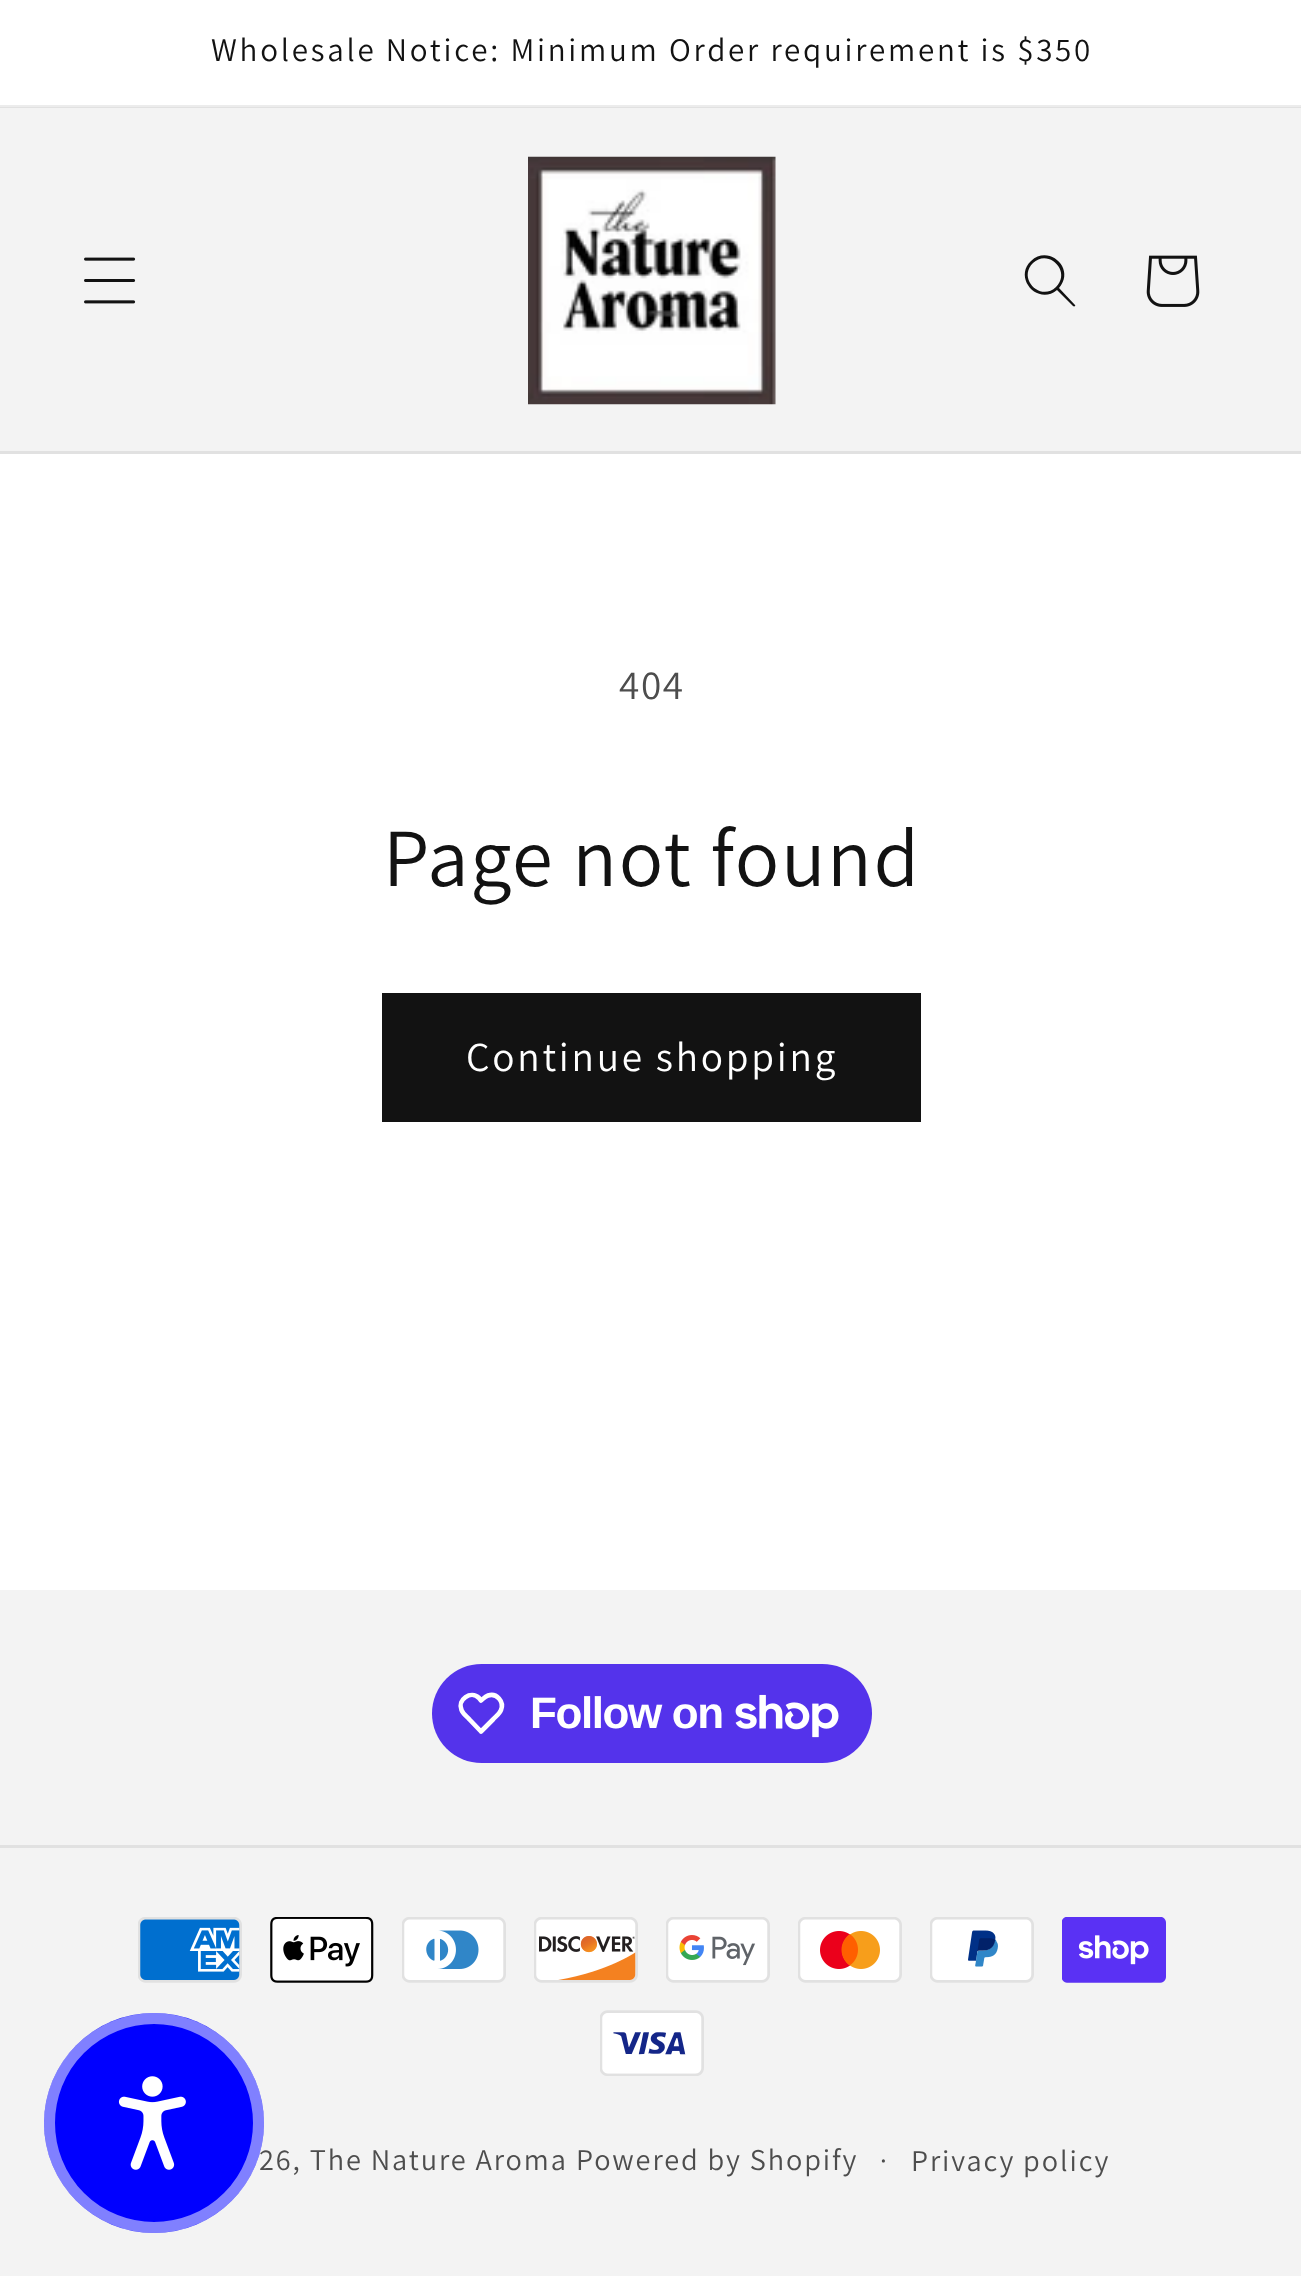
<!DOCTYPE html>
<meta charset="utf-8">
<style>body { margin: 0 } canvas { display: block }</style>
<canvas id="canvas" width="1301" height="2276"></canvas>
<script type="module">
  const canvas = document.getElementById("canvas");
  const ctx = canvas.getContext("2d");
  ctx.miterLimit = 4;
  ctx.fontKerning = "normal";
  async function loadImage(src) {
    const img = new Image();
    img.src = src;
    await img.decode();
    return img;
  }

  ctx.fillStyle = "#ffffff";
  ctx.fillRect(0, 0, 1301, 2276);
  ctx.fillStyle = "#ececec";
  ctx.fillRect(0, 105, 1301, 2);
  ctx.letterSpacing = "2.75px";
  ctx.font = "33px Assistant";
  ctx.fillStyle = "#121212";
  ctx.fillText("Wholesale Notice: Minimum Order requirement is $350", 211, 61);
  ctx.fillStyle = "#f3f3f3";
  ctx.fillRect(0, 108, 1301, 343);
  ctx.fillStyle = "#e1e1e1";
  ctx.fillRect(0, 107, 1301, 1);
  ctx.fillRect(0, 451, 1301, 3);
  ctx.drawImage(await loadImage("img1.png"), 84, 257, 52, 47);
  ctx.drawImage(await loadImage("img2.png"), 528, 156, 248, 249);
  ctx.fillStyle = "#121212";
  ctx.beginPath();
  ctx.moveTo(1056, 287);
  ctx.bezierCurveTo(1041, 302, 1017, 279, 1033, 263);
  ctx.bezierCurveTo(1048, 248, 1072, 271, 1056, 287);
  ctx.moveTo(1057, 290);
  ctx.bezierCurveTo(1038, 306, 1013, 278, 1031, 261);
  ctx.bezierCurveTo(1049, 244, 1076, 269, 1059, 288);
  ctx.lineTo(1075, 305);
  ctx.bezierCurveTo(1076, 306, 1074, 307, 1073, 306);
  ctx.closePath();
  ctx.fill("evenodd");
  ctx.drawImage(await loadImage("img3.png"), 1146, 255, 54, 52);
  ctx.letterSpacing = "1.6px";
  ctx.font = "41.25px Assistant";
  ctx.fillStyle = "#4d4d4d";
  ctx.fillText("404", 619, 699);
  ctx.font = "82.5px Assistant";
  ctx.fillStyle = "#121212";
  ctx.fillText("Page not found", 383, 886);
  ctx.fillRect(382, 993, 539, 129);
  ctx.letterSpacing = "2.75px";
  ctx.font = "41.25px Assistant";
  ctx.fillStyle = "#ffffff";
  ctx.fillText("Continue shopping", 466, 1071);
  ctx.fillStyle = "#f3f3f3";
  ctx.fillRect(0, 1590, 1301, 686);
  ctx.letterSpacing = "1.9px";
  ctx.font = "30.25px Assistant";
  ctx.fillStyle = "#4d4d4d";
  ctx.fillText("26, The Nature Aroma", 259, 2170);
  ctx.fillStyle = "#0000ff";
  ctx.beginPath();
  ctx.arc(154, 2123, 110, 0, Math.PI * 2);
  ctx.fill();
  ctx.beginPath();
  ctx.arc(154, 2123, 104.5, 0, Math.PI * 2);
  ctx.strokeStyle = "rgba(255, 255, 255, 0.5)";
  ctx.lineWidth = 11;
  ctx.stroke();
  ctx.drawImage(await loadImage("img4.png"), 118, 2076, 68, 94);
  ctx.fillStyle = "#5433eb";
  ctx.beginPath();
  ctx.roundRect(432, 1664, 440, 99, 49.5);
  ctx.fill();
  ctx.beginPath();
  ctx.moveTo(479, 1698);
  ctx.lineTo(481, 1700.5);
  ctx.bezierCurveTo(483.5, 1698.5, 485, 1696.5, 488, 1695.5);
  ctx.bezierCurveTo(496.5, 1692.5, 504.5, 1701.5, 501, 1710);
  ctx.bezierCurveTo(499.5, 1714, 495.5, 1716.5, 493, 1719.5);
  ctx.lineTo(481, 1731.5);
  ctx.lineTo(469.5, 1719.5);
  ctx.bezierCurveTo(467, 1716.5, 463, 1714, 461.5, 1710);
  ctx.bezierCurveTo(457, 1699.5, 471, 1690, 479, 1698);
  ctx.closePath();
  ctx.strokeStyle = "#ffffff";
  ctx.lineWidth = 4.6;
  ctx.lineJoin = "round";
  ctx.stroke();
  ctx.letterSpacing = "-1.4px";
  ctx.font = "bold 44px Liberation Sans";
  ctx.fillStyle = "#ffffff";
  ctx.fillText("Follow on", 530, 1728);
  ctx.drawImage(await loadImage("img5.png"), 735, 1694, 104, 44);
  ctx.fillStyle = "#e1e1e1";
  ctx.fillRect(0, 1845, 1301, 3);
  ctx.drawImage(await loadImage("img6.png"), 138, 1917, 104, 66);
  ctx.drawImage(await loadImage("img7.png"), 270, 1917, 104, 66);
  ctx.drawImage(await loadImage("img8.png"), 402, 1917, 104, 66);
  ctx.drawImage(await loadImage("img9.png"), 534, 1917, 104, 66);
  ctx.drawImage(await loadImage("img10.png"), 666, 1917, 104, 66);
  ctx.drawImage(await loadImage("img11.png"), 798, 1917, 104, 66);
  ctx.drawImage(await loadImage("img12.png"), 930, 1917, 104, 66);
  ctx.drawImage(await loadImage("img13.png"), 1062, 1917, 104, 66);
  ctx.drawImage(await loadImage("img14.png"), 600, 2010, 104, 66);
  ctx.letterSpacing = "1.9px";
  ctx.font = "30.25px Assistant";
  ctx.fillStyle = "#4d4d4d";
  ctx.fillText("Powered by Shopify", 576, 2170);
  ctx.font = "28px Assistant";
  ctx.fillText("·", 880, 2170);
  ctx.font = "30.25px Assistant";
  ctx.fillText("Privacy policy", 911, 2171);
</script>
